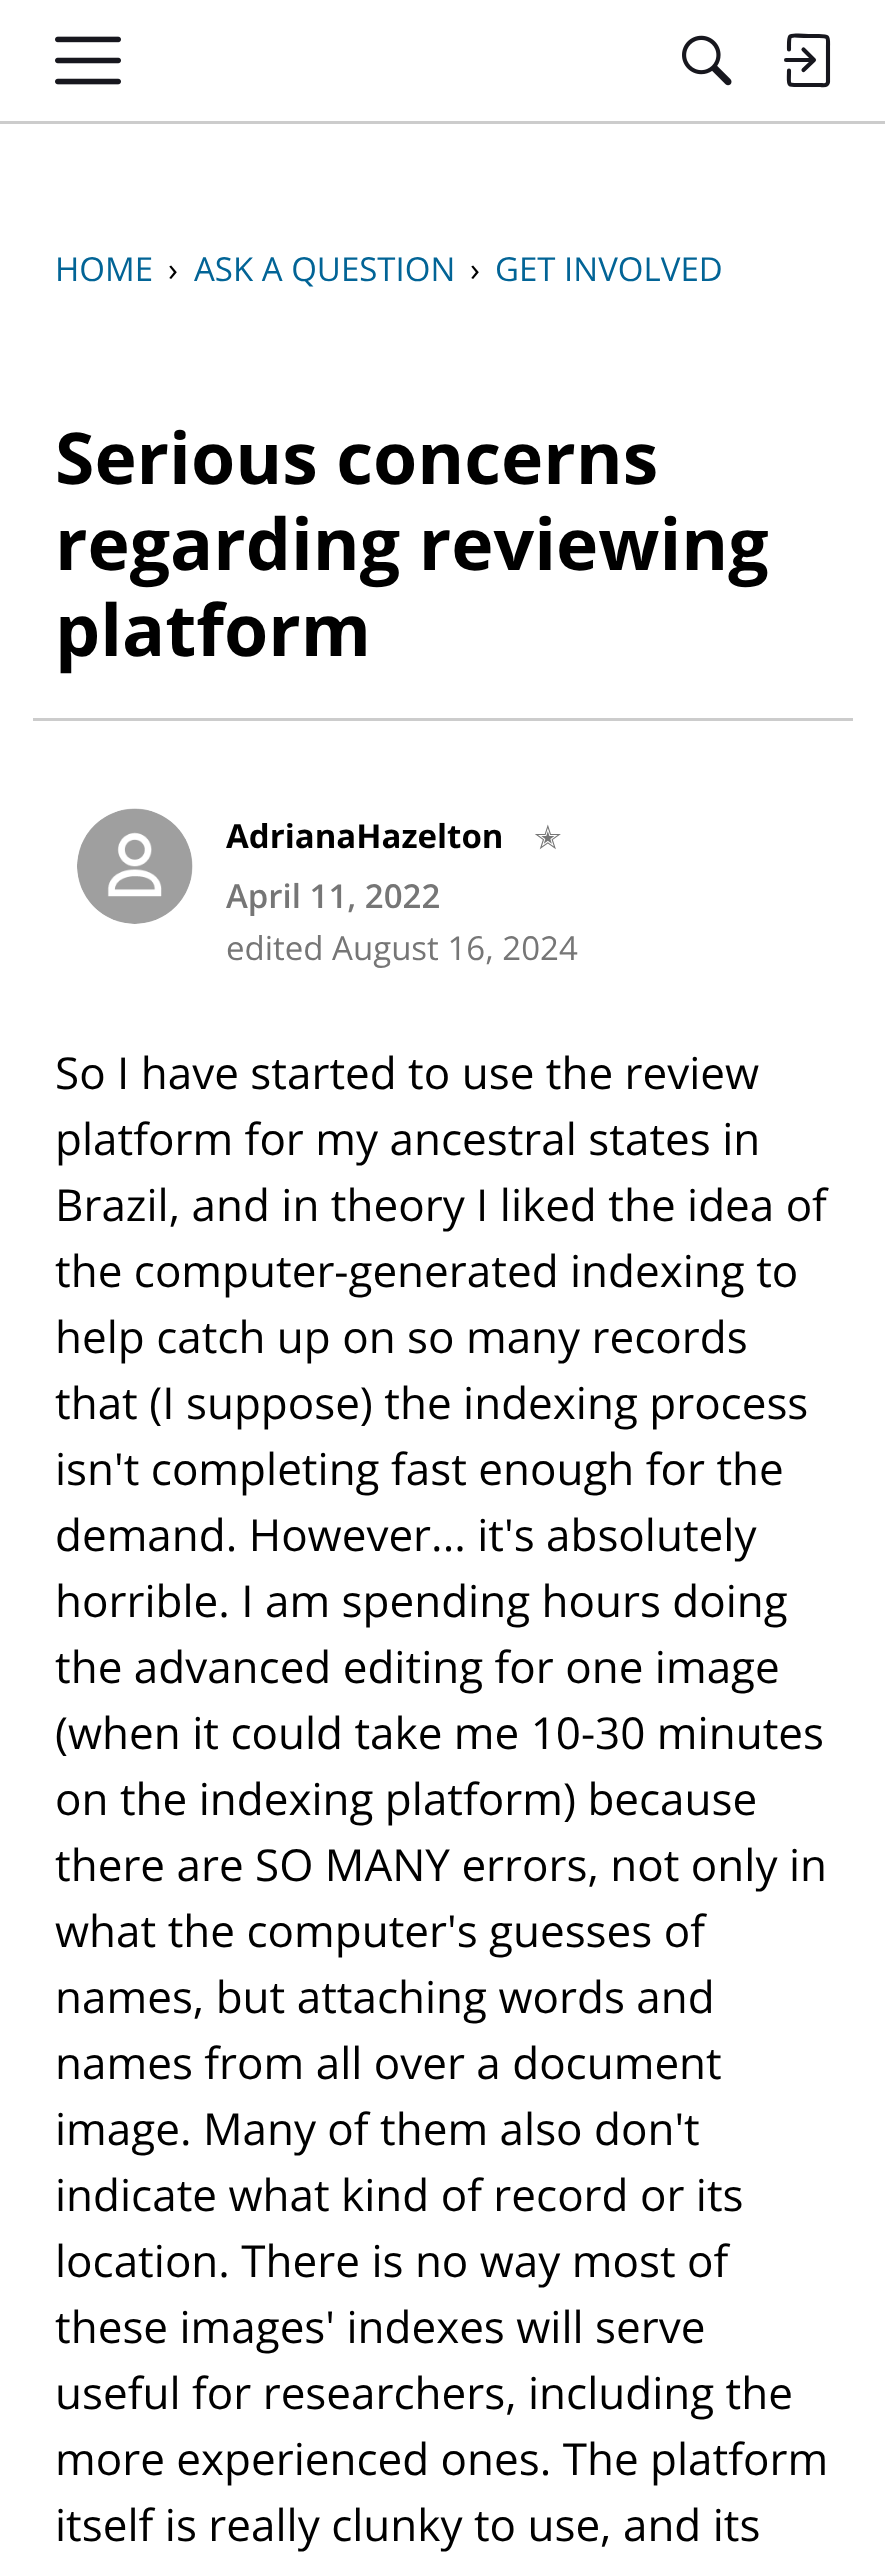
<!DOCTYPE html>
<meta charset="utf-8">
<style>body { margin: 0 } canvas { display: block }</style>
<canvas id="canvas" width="885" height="2568"></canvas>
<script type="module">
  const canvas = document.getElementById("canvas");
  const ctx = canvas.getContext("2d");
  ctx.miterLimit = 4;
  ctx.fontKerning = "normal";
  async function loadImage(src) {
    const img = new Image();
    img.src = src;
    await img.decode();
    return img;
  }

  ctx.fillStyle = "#ffffff";
  ctx.fillRect(0, 0, 885, 2568);
  ctx.fillStyle = "#cccccc";
  ctx.fillRect(0, 121, 885, 3);
  ctx.drawImage(await loadImage("img1.png"), 55, 36, 66, 49);
  ctx.drawImage(await loadImage("img2.png"), 682, 35, 50, 51);
  ctx.beginPath();
  ctx.moveTo(803.5, 70);
  ctx.lineTo(814, 60);
  ctx.lineTo(803.5, 49.5);
  ctx.strokeStyle = "#17171e";
  ctx.lineWidth = 4.1;
  ctx.lineCap = "round";
  ctx.lineJoin = "round";
  ctx.stroke();
  ctx.beginPath();
  ctx.moveTo(813, 60);
  ctx.lineTo(786, 60);
  ctx.lineJoin = "miter";
  ctx.stroke();
  ctx.beginPath();
  ctx.moveTo(789, 49.5);
  ctx.bezierCurveTo(789, 31.5, 787.5, 36, 808.5, 36);
  ctx.lineTo(819, 36);
  ctx.bezierCurveTo(829.5, 36, 828, 37, 828, 47.5);
  ctx.lineTo(828, 82);
  ctx.bezierCurveTo(827.5, 86.5, 823, 85, 820, 85);
  ctx.lineTo(803.5, 85);
  ctx.bezierCurveTo(786, 85, 789, 87, 789, 70.5);
  ctx.lineJoin = "round";
  ctx.stroke();
  ctx.font = "33px Open Sans";
  ctx.fillStyle = "#026496";
  ctx.fillText("HOME", 55, 281);
  ctx.fillStyle = "#000000";
  ctx.fillText("›", 168, 281);
  ctx.fillStyle = "#026496";
  ctx.fillText("ASK A QUESTION", 194, 281);
  ctx.fillStyle = "#000000";
  ctx.fillText("›", 470, 281);
  ctx.fillStyle = "#026496";
  ctx.fillText("GET INVOLVED", 495, 281);
  ctx.font = "bold 71.5px Open Sans";
  ctx.fillStyle = "#000000";
  ctx.fillText("Serious concerns", 55, 484);
  ctx.fillText("regarding reviewing", 55, 570);
  ctx.fillText("platform", 55, 656);
  ctx.fillStyle = "#cccccc";
  ctx.fillRect(33, 718, 820, 3);
  ctx.drawImage(await loadImage("img3.png"), 77, 808, 116, 116);
  ctx.font = "bold 33px Open Sans";
  ctx.fillStyle = "#000000";
  ctx.fillText("AdrianaHazelton", 226, 848);
  ctx.font = "33px DejaVu Sans";
  ctx.fillStyle = "#767676";
  ctx.fillText("✭", 534, 849);
  ctx.font = "600 33px Open Sans";
  ctx.fillText("April 11, 2022", 226, 908);
  ctx.font = "33px Open Sans";
  ctx.fillText("edited August 16, 2024", 226, 960);
  ctx.font = "44px Open Sans";
  ctx.fillStyle = "#000000";
  ctx.fillText("So I have started to use the review", 55, 1089);
  ctx.fillText("platform for my ancestral states in", 55, 1155);
  ctx.fillText("Brazil, and in theory I liked the idea of", 55, 1221);
  ctx.fillText("the computer-generated indexing to", 55, 1287);
  ctx.fillText("help catch up on so many records", 55, 1353);
  ctx.fillText("that (I suppose) the indexing process", 55, 1419);
  ctx.fillText("isn't completing fast enough for the", 55, 1485);
  ctx.fillText("demand. However... it's absolutely", 55, 1551);
  ctx.fillText("horrible. I am spending hours doing", 55, 1617);
  ctx.fillText("the advanced editing for one image", 55, 1683);
  ctx.fillText("(when it could take me 10-30 minutes", 55, 1749);
  ctx.fillText("on the indexing platform) because", 55, 1815);
  ctx.fillText("there are SO MANY errors, not only in", 55, 1881);
  ctx.fillText("what the computer's guesses of", 55, 1947);
  ctx.fillText("names, but attaching words and", 55, 2013);
  ctx.fillText("names from all over a document", 55, 2079);
  ctx.fillText("image. Many of them also don't", 55, 2145);
  ctx.fillText("indicate what kind of record or its", 55, 2211);
  ctx.fillText("location. There is no way most of", 55, 2277);
  ctx.fillText("these images' indexes will serve", 55, 2343);
  ctx.fillText("useful for researchers, including the", 55, 2409);
  ctx.fillText("more experienced ones. The platform", 55, 2475);
  ctx.fillText("itself is really clunky to use, and its", 55, 2541);
</script>
